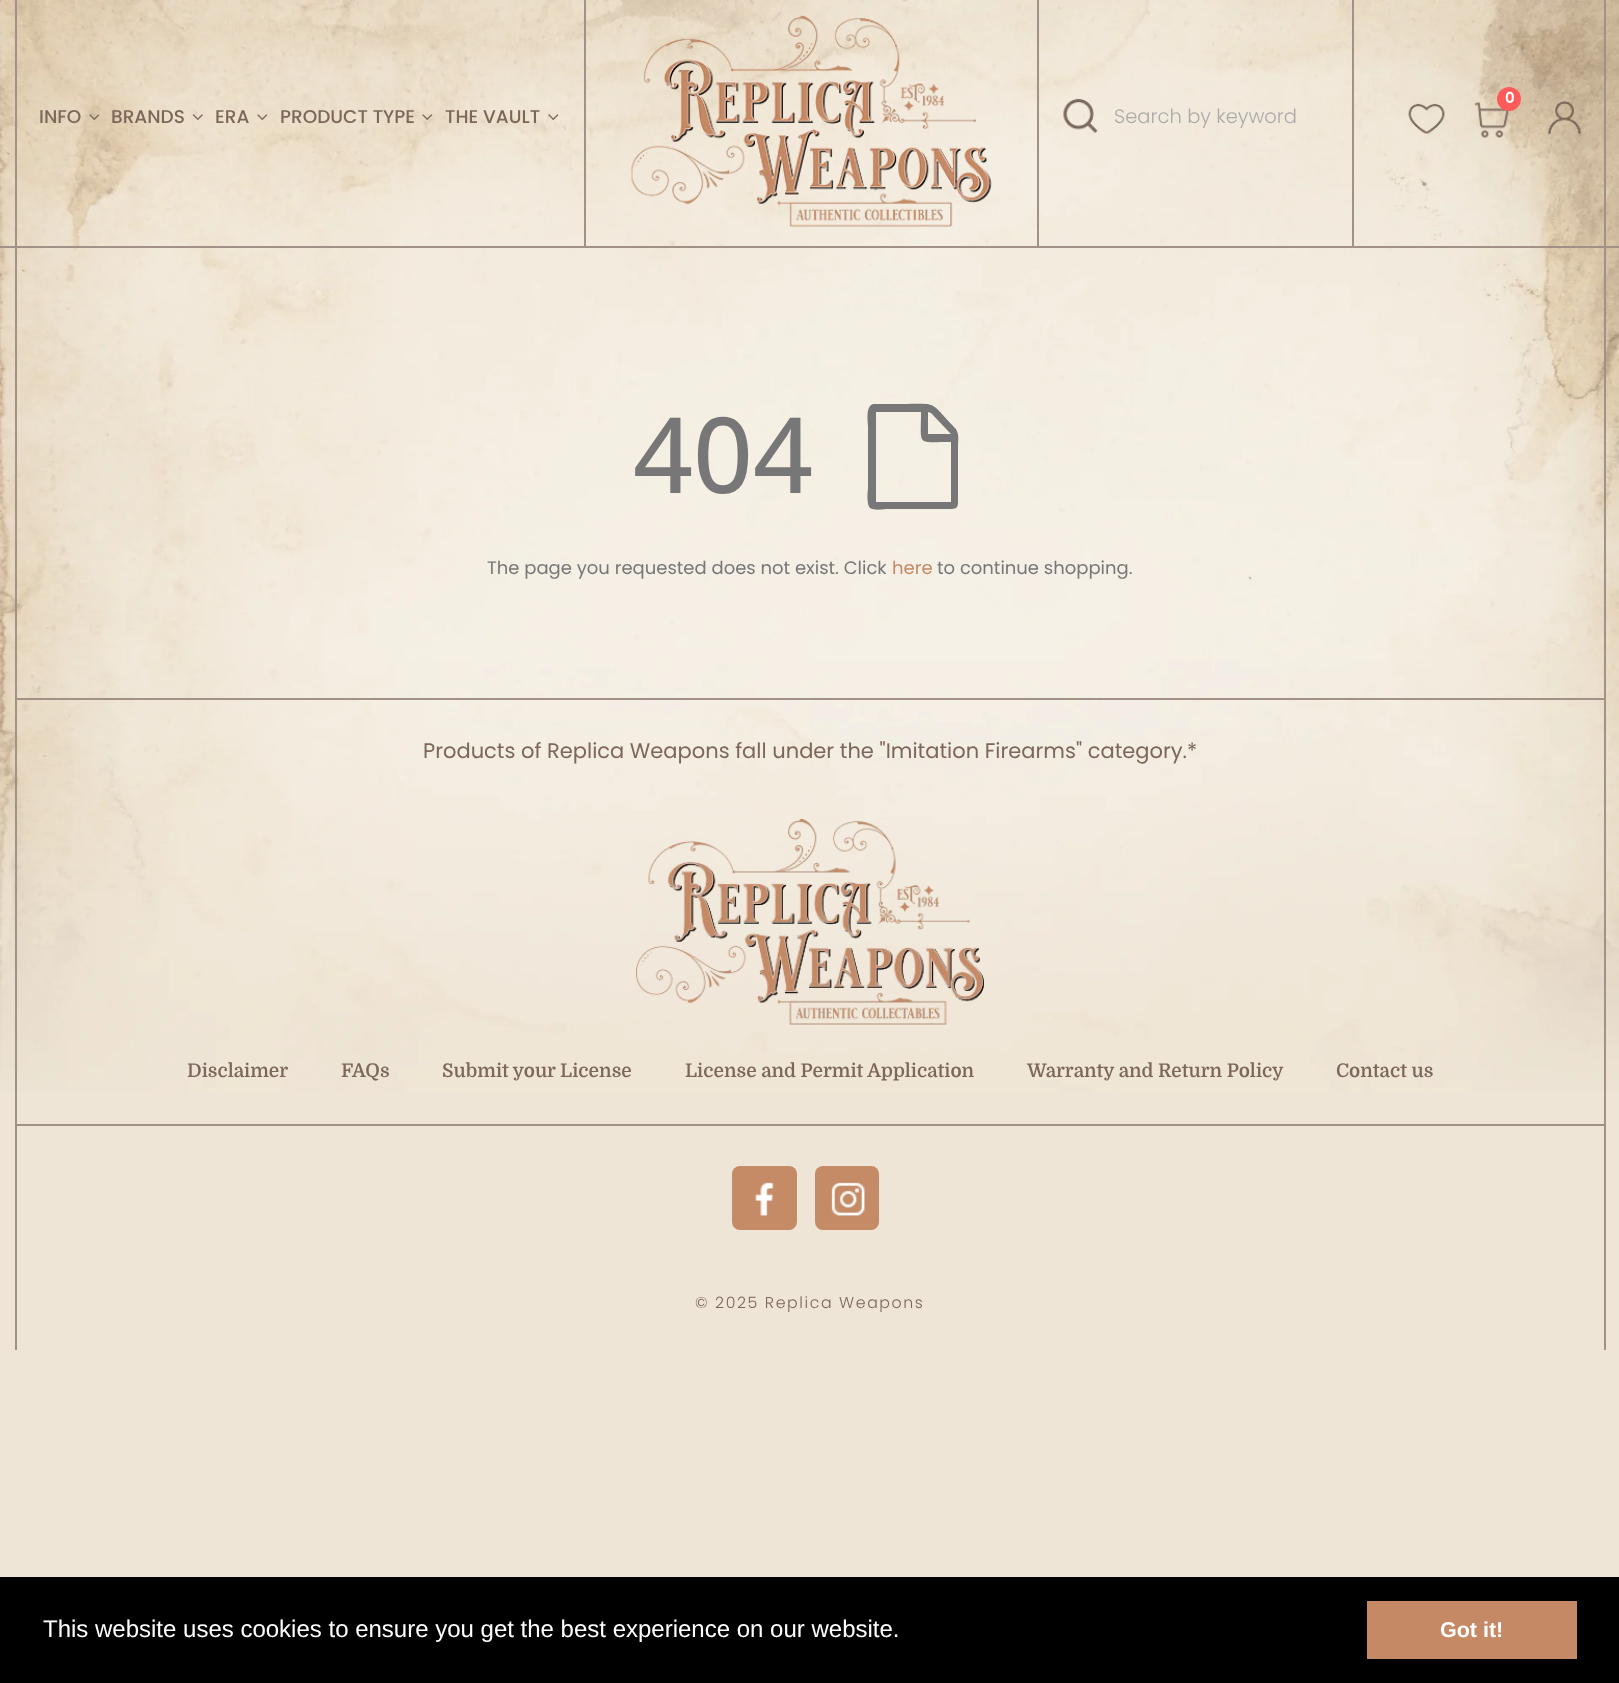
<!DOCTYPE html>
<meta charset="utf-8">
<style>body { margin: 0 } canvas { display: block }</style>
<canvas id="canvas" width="1619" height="1683"></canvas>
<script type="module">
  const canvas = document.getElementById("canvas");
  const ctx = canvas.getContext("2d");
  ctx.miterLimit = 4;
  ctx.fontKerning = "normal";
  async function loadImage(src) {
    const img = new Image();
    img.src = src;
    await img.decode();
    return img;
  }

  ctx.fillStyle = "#efe5d6";
  ctx.fillRect(0, 0, 1619, 1683);
  ctx.drawImage(await loadImage("img1.png"), 0, 0, 1619, 1093);
  ctx.fillStyle = "#a29187";
  ctx.fillRect(0, 246, 1619, 2);
  ctx.fillRect(1604, 0, 2, 246);
  ctx.fillRect(15, 0, 2, 246);
  ctx.font = "500 18.5px Poppins";
  ctx.fillStyle = "#7c675a";
  ctx.fillText("INFO", 39, 123);
  ctx.drawImage(await loadImage("img2.png"), 89, 114, 11, 6);
  ctx.fillText("BRANDS", 111, 123);
  ctx.drawImage(await loadImage("img3.png"), 192, 114, 11, 6);
  ctx.fillText("ERA", 215, 123);
  ctx.drawImage(await loadImage("img4.png"), 257, 114, 11, 6);
  ctx.fillText("PRODUCT TYPE", 280, 123);
  ctx.drawImage(await loadImage("img5.png"), 422, 114, 11, 6);
  ctx.fillText("THE VAULT", 445, 123);
  ctx.drawImage(await loadImage("img6.png"), 548, 114, 11, 6);
  ctx.fillStyle = "#a29187";
  ctx.fillRect(1037, 0, 2, 246);
  ctx.fillRect(584, 0, 2, 246);
  ctx.drawImage(await loadImage("img7.png"), 631, 15, 361, 212);
  ctx.drawImage(await loadImage("img8.png"), 1474, 102, 35, 36);
  ctx.fillStyle = "#ff5b5b";
  ctx.beginPath();
  ctx.arc(1509, 99, 12, 0, Math.PI * 2);
  ctx.fill();
  ctx.font = "600 15px Poppins";
  ctx.fillStyle = "#ffffff";
  ctx.fillText("0", 1505, 103);
  ctx.drawImage(await loadImage("img9.png"), 1408, 103, 37, 31);
  ctx.drawImage(await loadImage("img10.png"), 1547, 100, 35, 35);
  ctx.fillStyle = "#a29187";
  ctx.fillRect(1352, 0, 2, 246);
  ctx.drawImage(await loadImage("img11.png"), 1063, 98, 35, 35);
  ctx.font = "300 19.5px Poppins";
  ctx.fillStyle = "#aaaaaa";
  ctx.fillText("Search by keyword", 1114, 123);
  ctx.fillStyle = "#a29187";
  ctx.fillRect(1604, 248, 2, 450);
  ctx.fillRect(15, 248, 2, 450);
  ctx.font = "500 105px Open Sans";
  ctx.fillStyle = "#777777";
  ctx.fillText("404", 633, 493);
  ctx.beginPath();
  ctx.moveTo(954, 427);
  ctx.bezierCurveTo(960, 432, 958, 441, 958, 447);
  ctx.lineTo(958, 492);
  ctx.bezierCurveTo(958, 511, 960, 509, 940, 509);
  ctx.lineTo(887, 509);
  ctx.bezierCurveTo(886, 509, 874, 511, 870, 508);
  ctx.bezierCurveTo(866, 503, 868, 489, 868, 488);
  ctx.lineTo(868, 426);
  ctx.bezierCurveTo(868, 422, 865, 405, 874, 404);
  ctx.lineTo(900, 404);
  ctx.bezierCurveTo(939, 404, 928, 400, 954, 427);
  ctx.closePath();
  ctx.moveTo(928, 412);
  ctx.lineTo(928, 434);
  ctx.lineTo(951, 434);
  ctx.lineTo(949, 432);
  ctx.lineTo(931, 413);
  ctx.closePath();
  ctx.moveTo(951, 502);
  ctx.lineTo(951, 442);
  ctx.bezierCurveTo(916, 442, 921, 447, 921, 412);
  ctx.lineTo(876, 412);
  ctx.lineTo(876, 502);
  ctx.closePath();
  ctx.fill();
  ctx.font = "18px Poppins";
  ctx.fillText("The page you requested does not exist. Click", 487, 574);
  ctx.fillStyle = "#c58965";
  ctx.fillText("here", 892, 574);
  ctx.fillStyle = "#777777";
  ctx.fillText("to continue shopping.", 937, 574);
  ctx.fillStyle = "#a29187";
  ctx.fillRect(15, 698, 1590, 2);
  ctx.fillRect(1604, 698, 2, 426);
  ctx.fillRect(15, 698, 2, 426);
  ctx.font = "21px Poppins";
  ctx.fillStyle = "#7c675a";
  ctx.fillText("Products of Replica Weapons fall under the \"Imitation Firearms\" category.*", 423, 758);
  ctx.drawImage(await loadImage("img12.png"), 636, 819, 348, 206);
  ctx.font = "600 18.9px Domine";
  ctx.fillText("Disclaimer", 187, 1077);
  ctx.fillText("FAQs", 341, 1077);
  ctx.fillText("Submit your License", 442, 1077);
  ctx.fillText("License and Permit Application", 685, 1077);
  ctx.fillText("Warranty and Return Policy", 1027, 1077);
  ctx.fillText("Contact us", 1336, 1077);
  ctx.fillStyle = "#a29187";
  ctx.fillRect(15, 1124, 1590, 2);
  ctx.fillRect(1604, 1124, 2, 226);
  ctx.fillRect(15, 1124, 2, 226);
  ctx.fillStyle = "#c58a66";
  ctx.beginPath();
  ctx.roundRect(732, 1166, 65, 64, 8);
  ctx.fill();
  ctx.drawImage(await loadImage("img13.png"), 754, 1182, 20, 34);
  ctx.beginPath();
  ctx.roundRect(815, 1166, 64, 64, 8);
  ctx.fill();
  ctx.drawImage(await loadImage("img14.png"), 831, 1182, 34, 34);
  ctx.letterSpacing = "1.6px";
  ctx.font = "300 15.75px Poppins";
  ctx.fillStyle = "#7c675a";
  ctx.fillText("© 2025 Replica Weapons", 695, 1308);
  ctx.fillStyle = "#000000";
  ctx.fillRect(0, 1577, 1619, 106);
  ctx.letterSpacing = "0px";
  ctx.font = "24px Liberation Sans";
  ctx.fillStyle = "#ffffff";
  ctx.fillText("This website uses cookies to ensure you get the best experience on our website.", 43, 1637);
  ctx.fillStyle = "#c58965";
  ctx.fillRect(1367, 1601, 210, 58);
  ctx.font = "bold 21.5px Liberation Sans";
  ctx.fillStyle = "#ffffff";
  ctx.fillText("Got it!", 1440, 1637);
</script>
